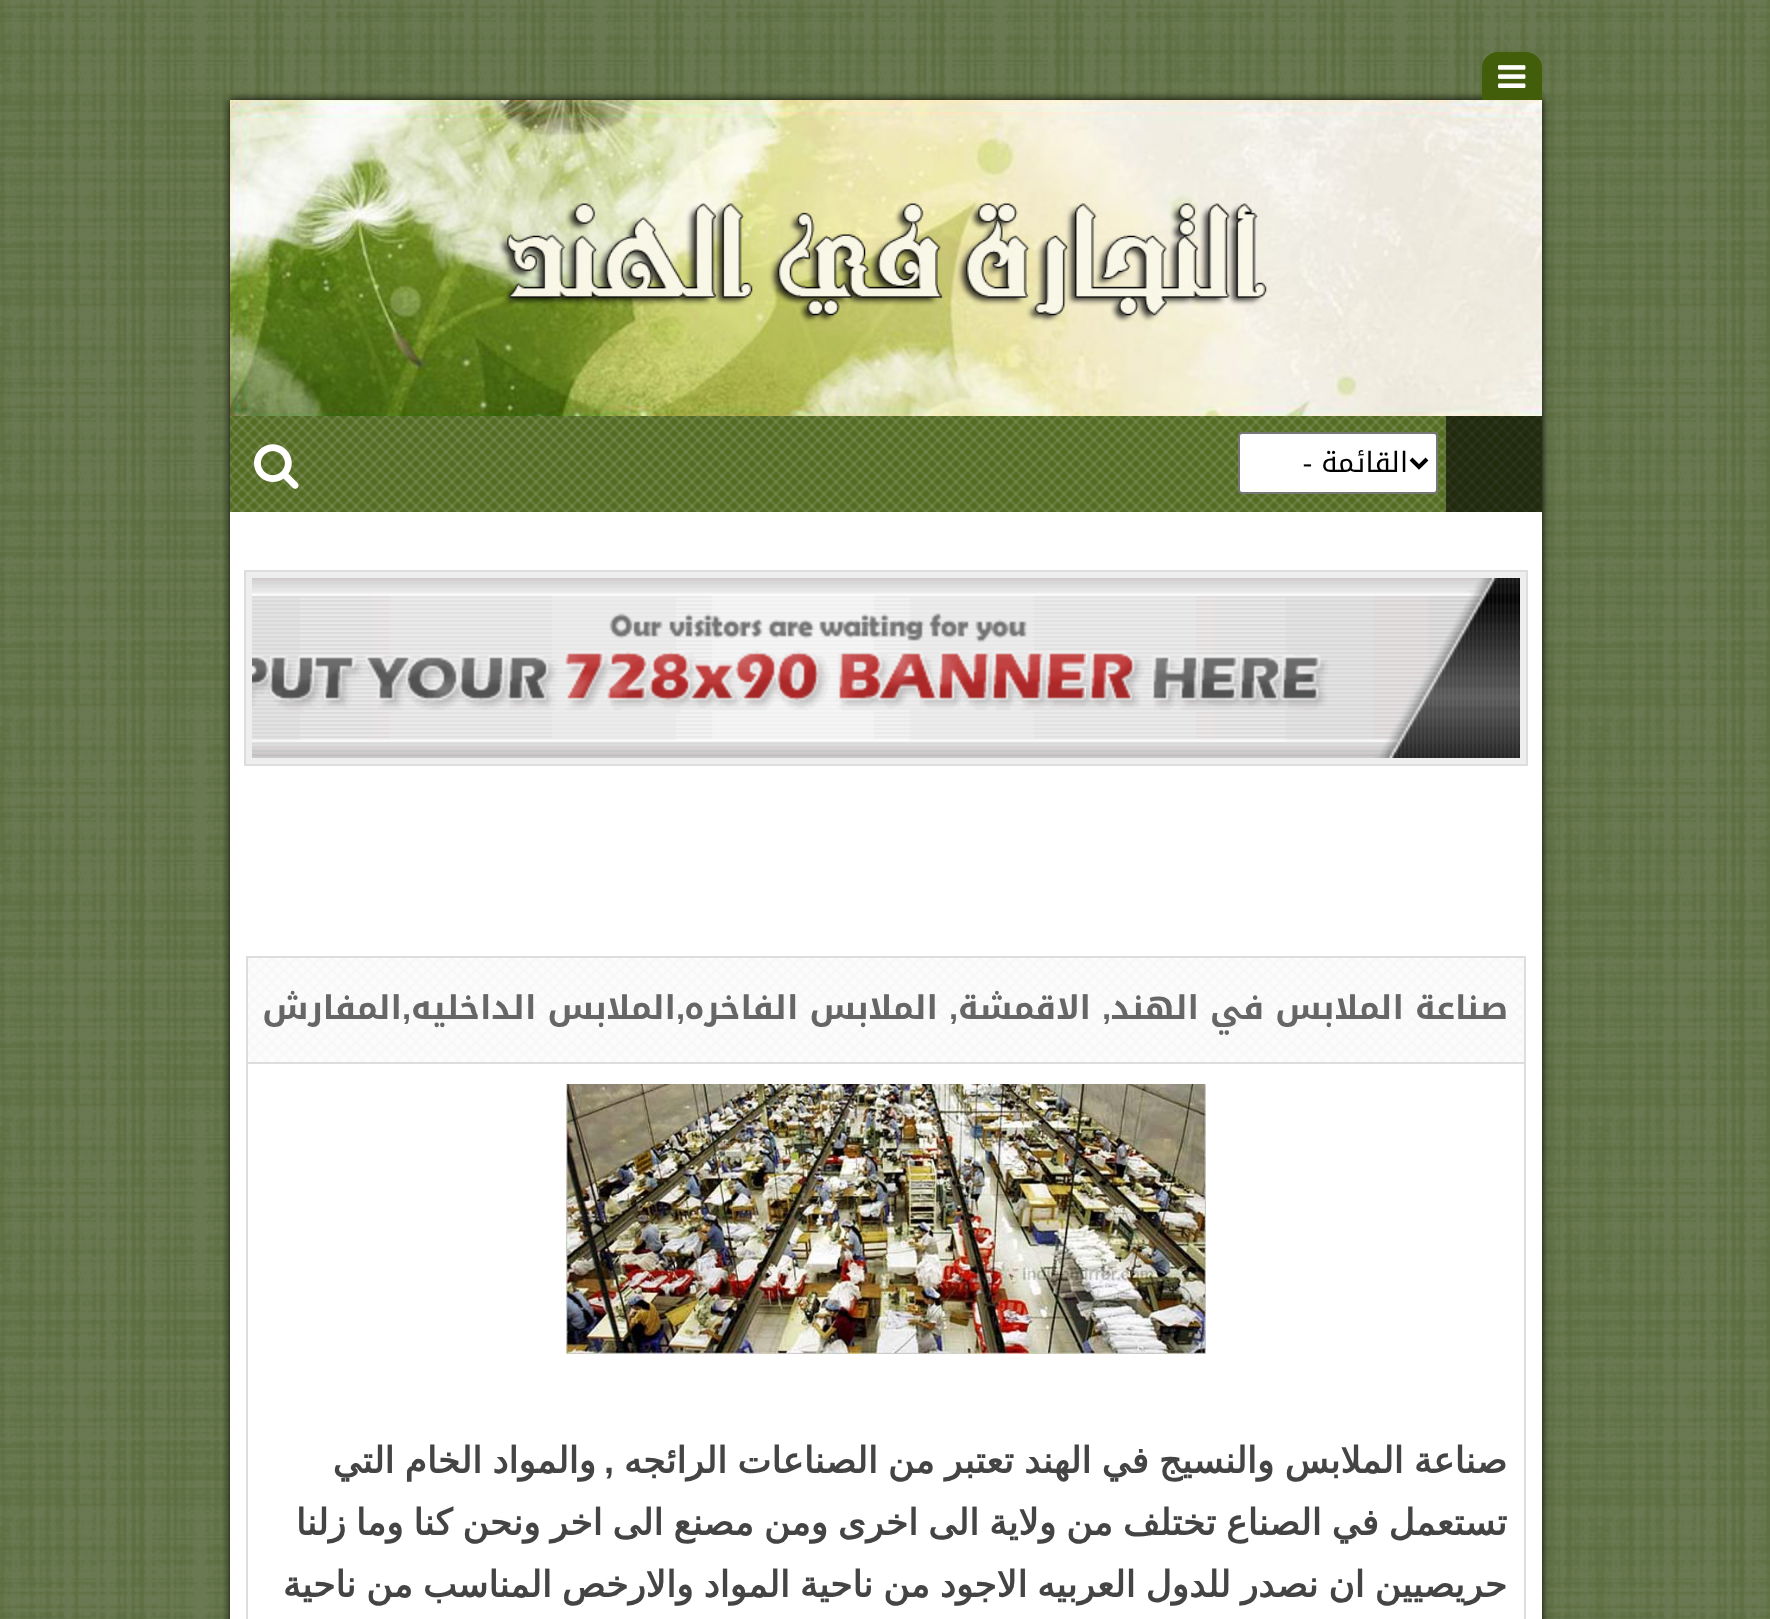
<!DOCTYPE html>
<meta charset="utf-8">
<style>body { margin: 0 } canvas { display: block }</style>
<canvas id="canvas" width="1770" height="1619"></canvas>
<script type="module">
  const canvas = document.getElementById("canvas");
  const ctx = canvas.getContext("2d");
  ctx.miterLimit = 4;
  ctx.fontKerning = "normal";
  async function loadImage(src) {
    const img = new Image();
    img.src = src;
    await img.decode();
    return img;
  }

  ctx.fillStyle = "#2a4401";
  ctx.fillRect(0, 0, 1770, 1619);
  ctx.drawImage(await loadImage("img1.png"), 0, 0, 1770, 1619);
  ctx.fillStyle = "#000000";
  ctx.filter = "blur(4px)";
  ctx.beginPath();
  ctx.rect(230, 100, 1312, 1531);
  ctx.fill();
  ctx.filter = "none";
  ctx.fillStyle = "#ffffff";
  ctx.fillRect(230, 512, 1312, 1107);
  ctx.fillStyle = "#425e0b";
  ctx.beginPath();
  ctx.roundRect(1482, 52, 60, 48, [16, 16, 0, 0]);
  ctx.fill();
  ctx.drawImage(await loadImage("img2.png"), 1498, 65, 28, 23);
  ctx.drawImage(await loadImage("img3.png"), 230, 100, 1312, 316);
  ctx.fillRect(230, 416, 1312, 96);
  ctx.drawImage(await loadImage("img4.png"), 230, 416, 1312, 96);
  ctx.fillStyle = "rgba(0, 0, 0, 0.6)";
  ctx.fillRect(1446, 416, 96, 96);
  ctx.fillStyle = "#ffffff";
  ctx.beginPath();
  ctx.roundRect(1239, 433, 198, 60, 3);
  ctx.fill();
  ctx.strokeStyle = "#767676";
  ctx.lineWidth = 2;
  ctx.stroke();
  ctx.beginPath();
  ctx.moveTo(1411, 459);
  ctx.lineTo(1419, 467);
  ctx.lineTo(1427, 459);
  ctx.strokeStyle = "#000000";
  ctx.lineWidth = 4;
  ctx.stroke();
  ctx.direction = "rtl";
  ctx.font = "28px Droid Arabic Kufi";
  ctx.fillStyle = "#000000";
  ctx.fillText("القائمة", 1408, 472);
  ctx.font = "28px Liberation Serif";
  ctx.fillText("-", 1312, 472);
  ctx.drawImage(await loadImage("img5.png"), 254, 444, 45, 45);
  ctx.strokeStyle = "#eeeeee";
  ctx.lineWidth = 6;
  ctx.strokeRect(249, 575, 1274, 186);
  ctx.drawImage(await loadImage("img6.png"), 252, 578, 1268, 180);
  ctx.strokeStyle = "#dddddd";
  ctx.lineWidth = 2;
  ctx.strokeRect(245, 571, 1282, 194);
  ctx.strokeRect(247, 957, 1278, 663);
  ctx.drawImage(await loadImage("img7.png"), 248, 958, 1276, 104);
  ctx.fillStyle = "#dddddd";
  ctx.fillRect(248, 1062, 1276, 2);
  ctx.font = "bold 32.75px Droid Arabic Kufi";
  ctx.fillStyle = "#666666";
  ctx.fillText("صناعة الملابس في الهند", 1508, 1019);
  ctx.font = "bold 32.75px Liberation Sans";
  ctx.fillText(",", 1111, 1019);
  ctx.font = "bold 32.75px Droid Arabic Kufi";
  ctx.fillText("الاقمشة", 1091, 1019);
  ctx.font = "bold 32.75px Liberation Sans";
  ctx.fillText(",", 958, 1019);
  ctx.font = "bold 32.75px Droid Arabic Kufi";
  ctx.fillText("الملابس الفاخره", 938, 1019);
  ctx.font = "bold 32.75px Liberation Sans";
  ctx.fillText(",", 685, 1019);
  ctx.font = "bold 32.75px Droid Arabic Kufi";
  ctx.fillText("الملابس الداخليه", 676, 1019);
  ctx.font = "bold 32.75px Liberation Sans";
  ctx.fillText(",", 411, 1019);
  ctx.font = "bold 32.75px Droid Arabic Kufi";
  ctx.fillText("المفارش", 402, 1019);
  ctx.drawImage(await loadImage("img8.png"), 566, 1084, 640, 270);
  ctx.wordSpacing = "-1.25px";
  ctx.font = "bold 36px DejaVu Sans";
  ctx.fillStyle = "#444444";
  ctx.fillText("صناعة الملابس والنسيج في الهند تعتبر من الصناعات الرائجه", 1507, 1473);
  ctx.wordSpacing = "0px";
  ctx.font = "bold 36px Liberation Sans";
  ctx.fillText(",", 614, 1473);
  ctx.wordSpacing = "-1.25px";
  ctx.font = "bold 36px DejaVu Sans";
  ctx.fillText("والمواد الخام التي", 596, 1473);
  ctx.wordSpacing = "-1.5px";
  ctx.fillText("تستعمل في الصناع تختلف من ولاية الى اخرى ومن مصنع الى اخر ونحن كنا وما زلنا", 1507, 1535);
  ctx.fillText("حريصيين ان نصدر للدول العربيه الاجود من ناحية المواد والارخص المناسب من ناحية", 1507, 1597);
</script>
